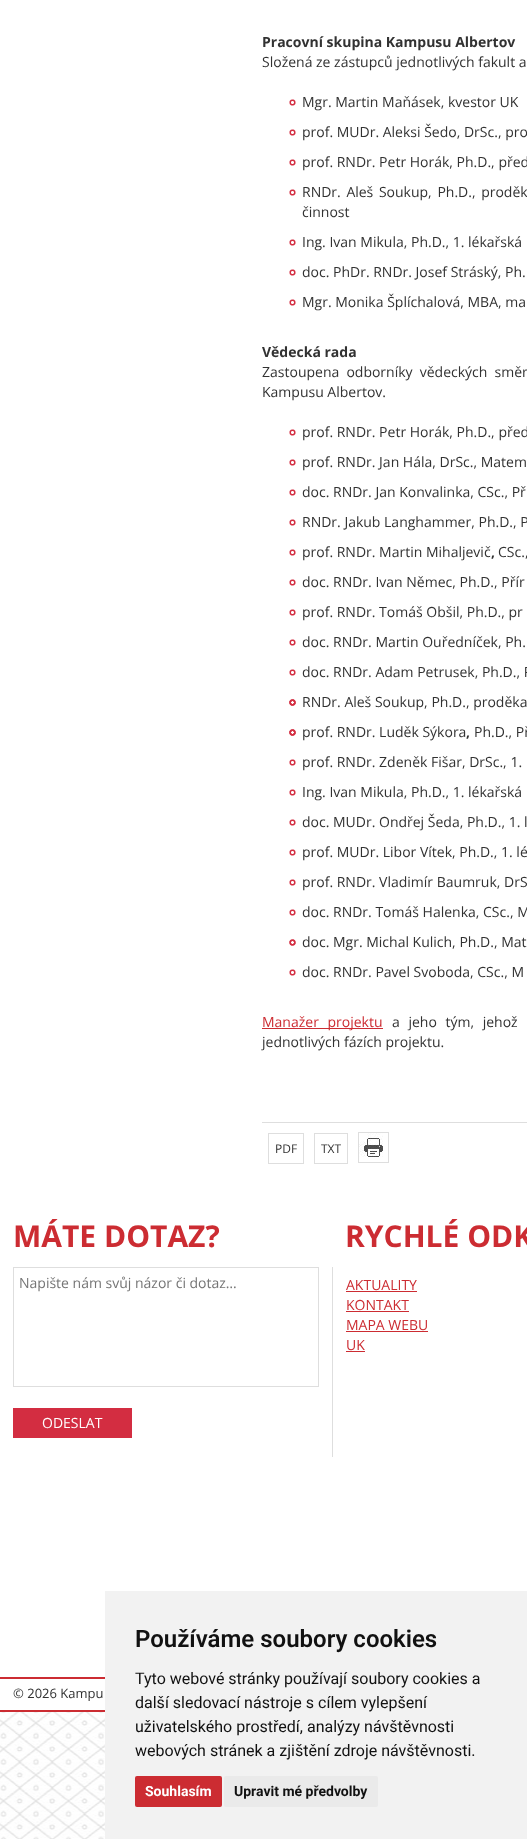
<!DOCTYPE html>
<meta charset="utf-8">
<style>body { margin: 0 } canvas { display: block }</style>
<canvas id="canvas" width="527" height="1839"></canvas>
<script type="module">
  const canvas = document.getElementById("canvas");
  const ctx = canvas.getContext("2d");
  ctx.miterLimit = 4;
  ctx.fontKerning = "normal";
  async function loadImage(src) {
    const img = new Image();
    img.src = src;
    await img.decode();
    return img;
  }

  ctx.fillStyle = "#ffffff";
  ctx.fillRect(0, 0, 527, 1839);
  ctx.drawImage(await loadImage("img1.png"), 0, 1712, 105, 127);
  ctx.fillStyle = "#dedede";
  ctx.fillRect(262, 1122, 265, 1);
  ctx.font = "bold 14px Open Sans";
  ctx.fillStyle = "#323232";
  ctx.fillText("Pracovní skupina Kampusu Albertov", 262, 47);
  ctx.font = "14px Open Sans";
  ctx.fillText("Složená ze zástupců jednotlivých fakult a", 262, 67);
  ctx.drawImage(await loadImage("img2.png"), 289, 99, 7, 7);
  ctx.fillText("Mgr. Martin Maňásek, kvestor UK", 302, 107);
  ctx.drawImage(await loadImage("img2.png"), 289, 129, 7, 7);
  ctx.fillText("prof. MUDr. Aleksi Šedo, DrSc., pro", 302, 137);
  ctx.drawImage(await loadImage("img2.png"), 289, 159, 7, 7);
  ctx.fillText("prof. RNDr. Petr Horák, Ph.D., před", 302, 167);
  ctx.drawImage(await loadImage("img2.png"), 289, 189, 7, 7);
  ctx.wordSpacing = "2px";
  ctx.fillText("RNDr. Aleš Soukup, Ph.D., proděk", 302, 197);
  ctx.wordSpacing = "0px";
  ctx.fillText("činnost", 302, 217);
  ctx.drawImage(await loadImage("img2.png"), 289, 239, 7, 7);
  ctx.fillText("Ing. Ivan Mikula, Ph.D., 1. lékařská", 302, 247);
  ctx.drawImage(await loadImage("img2.png"), 289, 269, 7, 7);
  ctx.fillText("doc. PhDr. RNDr. Josef Stráský, Ph.", 302, 277);
  ctx.drawImage(await loadImage("img2.png"), 289, 299, 7, 7);
  ctx.fillText("Mgr. Monika Šplíchalová, MBA, ma", 302, 307);
  ctx.font = "bold 14px Open Sans";
  ctx.fillText("Vědecká rada", 262, 357);
  ctx.wordSpacing = "3.5px";
  ctx.font = "14px Open Sans";
  ctx.fillText("Zastoupena odborníky vědeckých směr", 262, 377);
  ctx.wordSpacing = "0px";
  ctx.fillText("Kampusu Albertov.", 262, 397);
  ctx.drawImage(await loadImage("img2.png"), 289, 429, 7, 7);
  ctx.fillText("prof. RNDr. Petr Horák, Ph.D., před", 302, 437);
  ctx.drawImage(await loadImage("img2.png"), 289, 459, 7, 7);
  ctx.fillText("prof. RNDr. Jan Hála, DrSc., Matem", 302, 467);
  ctx.drawImage(await loadImage("img2.png"), 289, 489, 7, 7);
  ctx.fillText("doc. RNDr. Jan Konvalinka, CSc., Př", 302, 497);
  ctx.drawImage(await loadImage("img2.png"), 289, 519, 7, 7);
  ctx.fillText("RNDr. Jakub Langhammer, Ph.D., P", 302, 527);
  ctx.drawImage(await loadImage("img2.png"), 289, 549, 7, 7);
  ctx.fillText("prof. RNDr. Martin Mihaljevič", 302, 557);
  ctx.font = "bold 14px Open Sans";
  ctx.fillText(",", 491, 557);
  ctx.font = "14px Open Sans";
  ctx.fillText("CSc.,", 498, 557);
  ctx.drawImage(await loadImage("img2.png"), 289, 579, 7, 7);
  ctx.fillText("doc. RNDr. Ivan Němec, Ph.D., Přír", 302, 587);
  ctx.drawImage(await loadImage("img2.png"), 289, 609, 7, 7);
  ctx.fillText("prof. RNDr. Tomáš Obšil, Ph.D., pr", 302, 617);
  ctx.drawImage(await loadImage("img2.png"), 289, 639, 7, 7);
  ctx.fillText("doc. RNDr. Martin Ouředníček, Ph.", 302, 647);
  ctx.drawImage(await loadImage("img2.png"), 289, 669, 7, 7);
  ctx.fillText("doc. RNDr. Adam Petrusek, Ph.D., P", 302, 677);
  ctx.drawImage(await loadImage("img2.png"), 289, 699, 7, 7);
  ctx.drawImage(await loadImage("img4.png"), 289, 699, 7, 7);
  ctx.drawImage(await loadImage("img3.png"), 289, 699, 7, 7);
  ctx.fillText("RNDr. Aleš Soukup, Ph.D., proděka", 302, 707);
  ctx.drawImage(await loadImage("img2.png"), 289, 729, 7, 7);
  ctx.drawImage(await loadImage("img4.png"), 289, 729, 7, 7);
  ctx.drawImage(await loadImage("img3.png"), 289, 729, 7, 7);
  ctx.fillText("prof. RNDr. Luděk Sýkora", 302, 737);
  ctx.font = "bold 14px Open Sans";
  ctx.fillText(",", 466, 737);
  ctx.font = "14px Open Sans";
  ctx.fillText("Ph.D., Př", 474, 737);
  ctx.drawImage(await loadImage("img2.png"), 289, 759, 7, 7);
  ctx.fillText("prof. RNDr. Zdeněk Fišar, DrSc., 1.", 302, 767);
  ctx.drawImage(await loadImage("img2.png"), 289, 789, 7, 7);
  ctx.fillText("Ing. Ivan Mikula, Ph.D., 1. lékařská", 302, 797);
  ctx.drawImage(await loadImage("img2.png"), 289, 819, 7, 7);
  ctx.fillText("doc. MUDr. Ondřej Šeda, Ph.D., 1. l", 302, 827);
  ctx.drawImage(await loadImage("img2.png"), 289, 849, 7, 7);
  ctx.fillText("prof. MUDr. Libor Vítek, Ph.D., 1. lé", 302, 857);
  ctx.drawImage(await loadImage("img2.png"), 289, 879, 7, 7);
  ctx.fillText("prof. RNDr. Vladimír Baumruk, DrS", 302, 887);
  ctx.drawImage(await loadImage("img2.png"), 289, 909, 7, 7);
  ctx.fillText("doc. RNDr. Tomáš Halenka, CSc., M", 302, 917);
  ctx.drawImage(await loadImage("img2.png"), 289, 939, 7, 7);
  ctx.drawImage(await loadImage("img4.png"), 289, 939, 7, 7);
  ctx.fillText("doc. Mgr. Michal Kulich, Ph.D., Mat", 302, 947);
  ctx.drawImage(await loadImage("img2.png"), 289, 969, 7, 7);
  ctx.fillText("doc. RNDr. Pavel Svoboda, CSc., M", 302, 977);
  ctx.fillStyle = "#cc2c32";
  ctx.fillRect(262, 1028, 121, 1);
  ctx.wordSpacing = "5px";
  ctx.fillText("Manažer projektu", 262, 1027);
  ctx.fillStyle = "#323232";
  ctx.fillText("a jeho tým, jehož", 392, 1027);
  ctx.wordSpacing = "0px";
  ctx.fillText("jednotlivých fázích projektu.", 262, 1047);
  ctx.strokeStyle = "#dedede";
  ctx.strokeRect(268.5, 1133.5, 35, 30);
  ctx.font = "12px Open Sans";
  ctx.fillText("PDF", 275, 1153);
  ctx.strokeRect(314.5, 1133.5, 33, 30);
  ctx.fillText("TXT", 321, 1153);
  ctx.strokeRect(358.5, 1132.5, 30, 30);
  ctx.drawImage(await loadImage("img5.png"), 359, 1133, 24, 24);
  ctx.font = "bold 30px Open Sans";
  ctx.fillStyle = "#cc2c32";
  ctx.fillText("MÁTE DOTAZ?", 13, 1247);
  ctx.strokeRect(13.5, 1267.5, 305, 119);
  ctx.font = "14px Open Sans";
  ctx.fillStyle = "#757575";
  ctx.fillText("Napište nám svůj názor či dotaz…", 19, 1288);
  ctx.fillStyle = "#d32d41";
  ctx.fillRect(13, 1408, 119, 30);
  ctx.fillStyle = "#ffffff";
  ctx.fillText("ODESLAT", 42, 1428);
  ctx.font = "bold 30px Open Sans";
  ctx.fillStyle = "#cc2c32";
  ctx.fillText("RYCHLÉ ODK", 345, 1247);
  ctx.fillStyle = "#dedede";
  ctx.fillRect(332, 1267, 1, 190);
  ctx.font = "14px Open Sans";
  ctx.fillStyle = "#cc2c32";
  ctx.fillText("AKTUALITY", 346, 1290);
  ctx.fillRect(346, 1291, 71, 1);
  ctx.fillText("KONTAKT", 346, 1310);
  ctx.fillRect(346, 1311, 63, 1);
  ctx.fillText("MAPA WEBU", 346, 1330);
  ctx.fillRect(346, 1331, 82, 1);
  ctx.fillText("UK", 346, 1350);
  ctx.fillRect(346, 1351, 19, 1);
  ctx.fillRect(0, 1677, 105, 2);
  ctx.fillRect(0, 1710, 105, 2);
  ctx.font = "13px Open Sans";
  ctx.fillStyle = "#323232";
  ctx.fillText("© 2026 Kampu", 13, 1698);
  ctx.fillStyle = "#f2f2f2";
  ctx.fillRect(105, 1591, 422, 248);
  ctx.font = "600 24px Roboto";
  ctx.fillStyle = "#111111";
  ctx.fillText("Používáme soubory cookies", 135, 1647);
  ctx.font = "16px Roboto";
  ctx.fillText("Tyto webové stránky používají soubory cookies a", 135, 1684);
  ctx.fillText("další sledovací nástroje s cílem vylepšení", 135, 1708);
  ctx.fillText("uživatelského prostředí, analýzy návštěvnosti", 135, 1732);
  ctx.fillText("webových stránek a zjištění zdroje návštěvnosti.", 135, 1756);
  ctx.fillStyle = "#cc2c32";
  ctx.beginPath();
  ctx.roundRect(135, 1776, 87, 31, 2);
  ctx.fill();
  ctx.font = "bold 14px Roboto";
  ctx.fillStyle = "#ffffff";
  ctx.fillText("Souhlasím", 145, 1796);
  ctx.fillStyle = "#eaeaea";
  ctx.beginPath();
  ctx.roundRect(224, 1776, 154, 31, 2);
  ctx.fill();
  ctx.fillStyle = "#111111";
  ctx.fillText("Upravit mé předvolby", 234, 1796);
</script>
